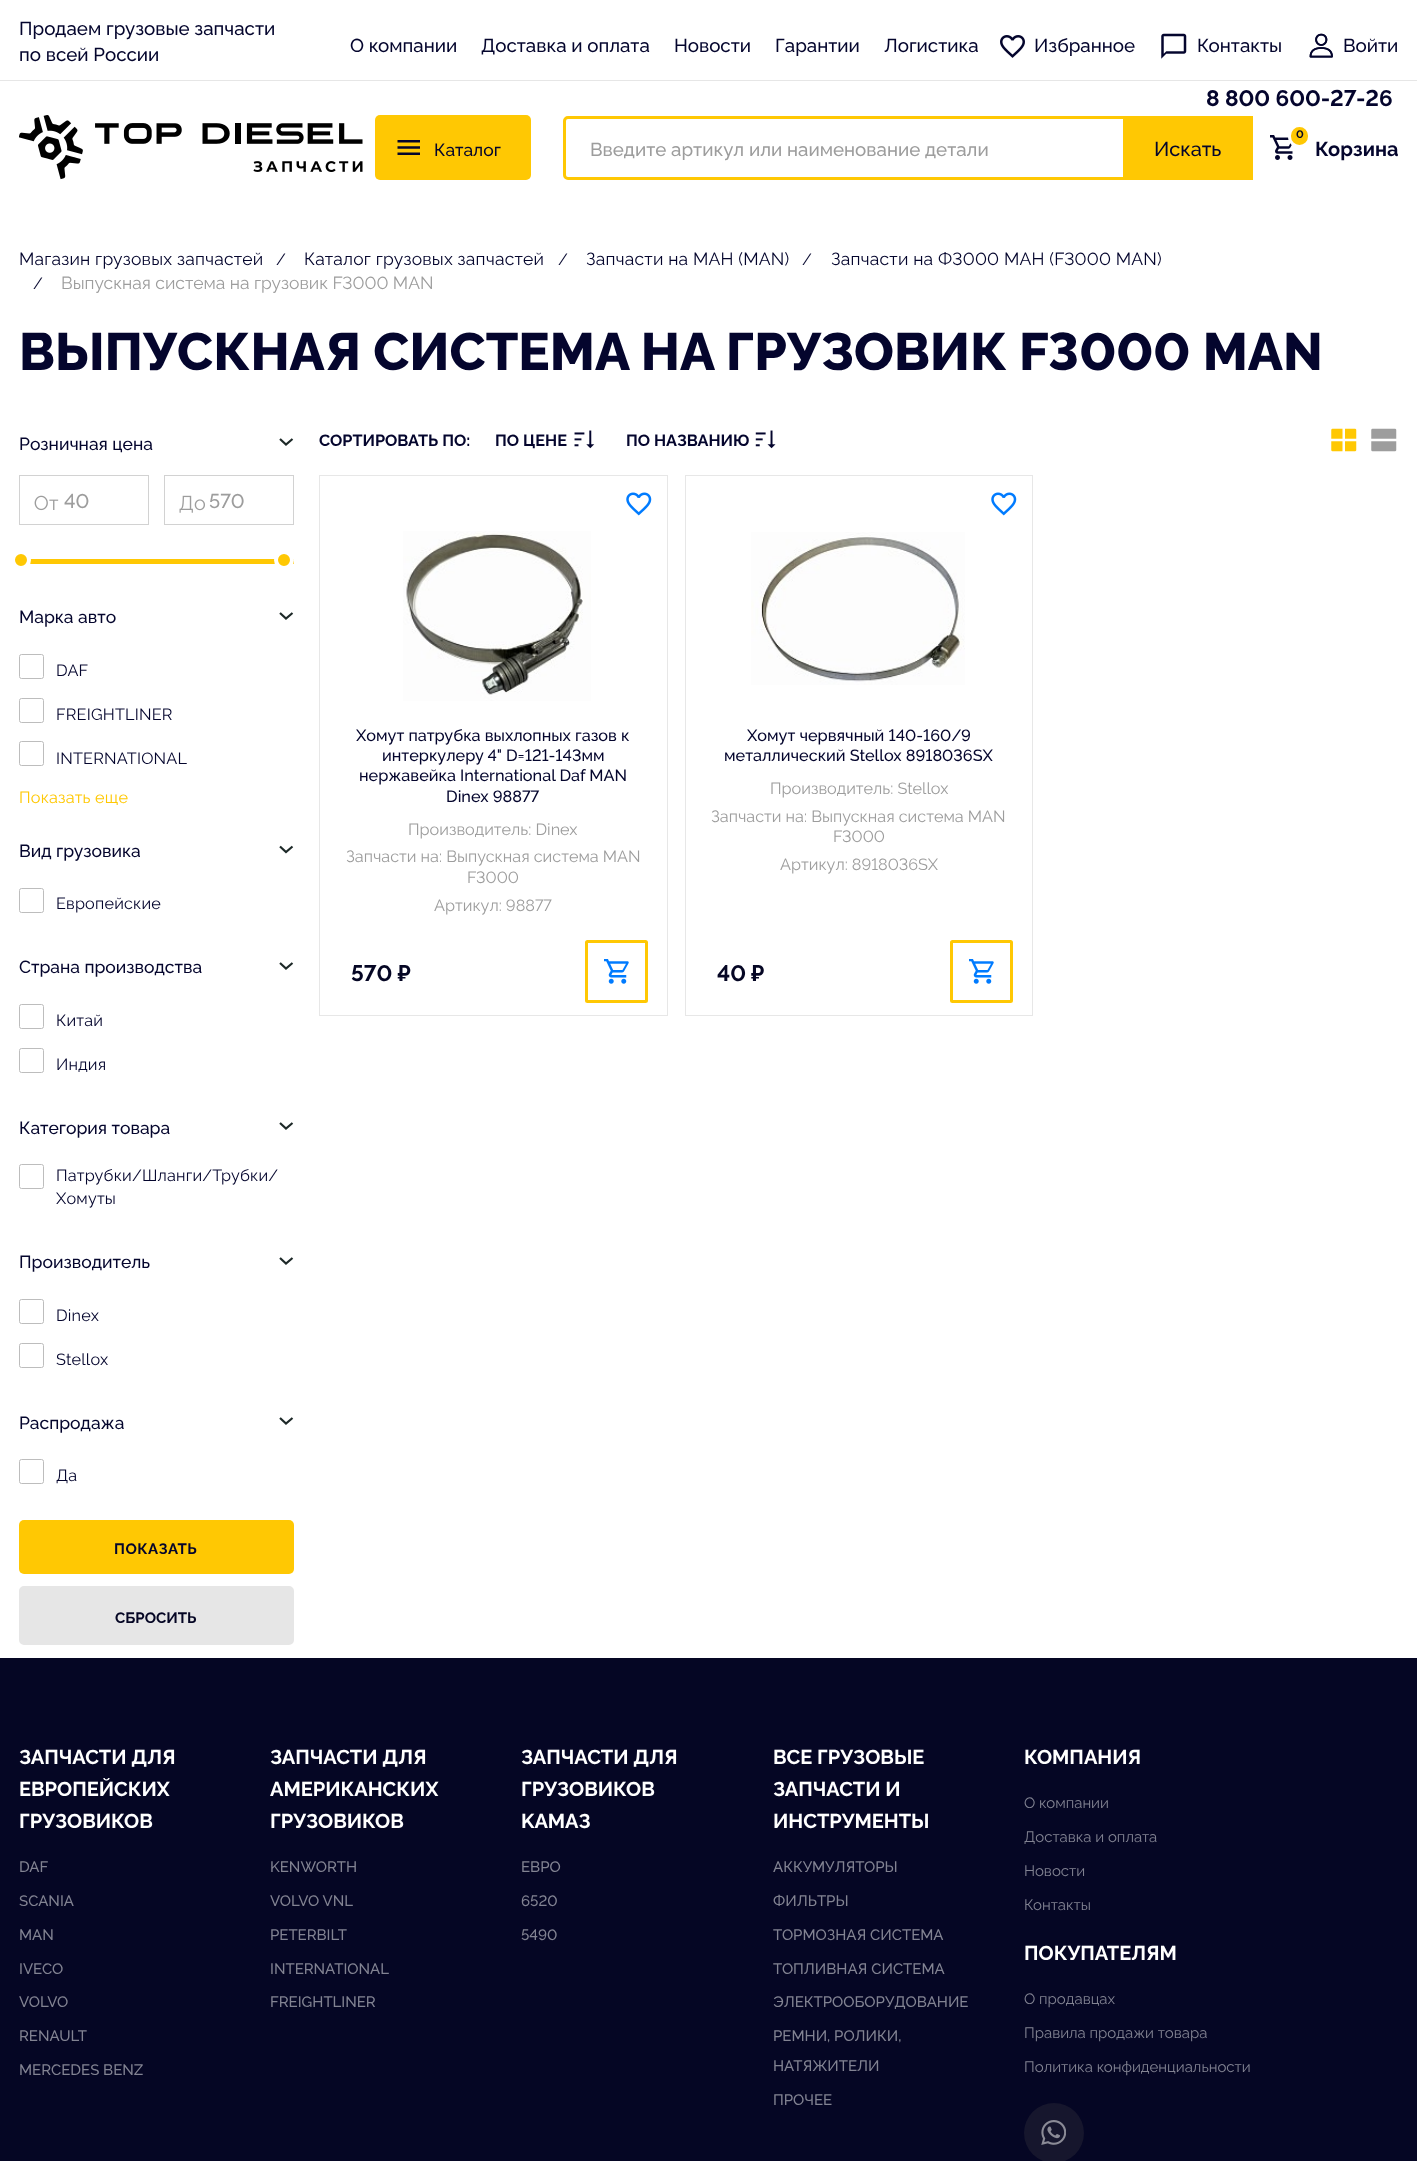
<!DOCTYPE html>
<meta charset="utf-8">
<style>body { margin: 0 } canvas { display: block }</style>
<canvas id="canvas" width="1417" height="2161"></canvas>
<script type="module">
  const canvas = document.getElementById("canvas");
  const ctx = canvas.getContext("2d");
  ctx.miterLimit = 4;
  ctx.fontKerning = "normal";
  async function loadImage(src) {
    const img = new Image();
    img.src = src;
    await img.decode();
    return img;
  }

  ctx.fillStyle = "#ffffff";
  ctx.fillRect(0, 0, 1417, 2161);
  ctx.fillStyle = "#e6e6e6";
  ctx.fillRect(0, 80, 1417, 1);
  ctx.font = "500 18.75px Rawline";
  ctx.fillStyle = "#04052d";
  ctx.fillText("Продаем грузовые запчасти", 19, 35);
  ctx.fillText("по всей России", 19, 61);
  ctx.fillText("О компании", 350, 52);
  ctx.fillText("Доставка и оплата", 481, 52);
  ctx.fillText("Новости", 674, 52);
  ctx.fillText("Гарантии", 775, 52);
  ctx.fillText("Логистика", 884, 52);
  ctx.drawImage(await loadImage("img1.png"), 1000, 35, 25, 23);
  ctx.fillText("Избранное", 1034, 52);
  ctx.drawImage(await loadImage("img2.png"), 1161, 33, 26, 26);
  ctx.fillText("Контакты", 1197, 52);
  ctx.drawImage(await loadImage("img3.png"), 1309, 33, 24, 25);
  ctx.fillText("Войти", 1343, 52);
  ctx.font = "bold 22.5px Rawline";
  ctx.fillText("8 800 600-27-26", 1206, 106);
  ctx.drawImage(await loadImage("img4.png"), 19, 115, 344, 65);
  ctx.fillStyle = "#ffc803";
  ctx.beginPath();
  ctx.roundRect(375, 115, 156, 65, 5);
  ctx.fill();
  ctx.drawImage(await loadImage("img5.png"), 397, 140, 23, 15);
  ctx.font = "500 17.5px Rawline";
  ctx.fillStyle = "#04052d";
  ctx.fillText("Каталог", 434, 156);
  ctx.beginPath();
  ctx.roundRect(564.5, 117.5, 687, 61, [3.5, 0, 0, 3.5]);
  ctx.strokeStyle = "#ffc803";
  ctx.lineWidth = 3;
  ctx.stroke();
  ctx.font = "500 18.75px Rawline";
  ctx.fillStyle = "#9d9d9d";
  ctx.fillText("Введите артикул или наименование детали", 590, 156);
  ctx.fillStyle = "#ffc803";
  ctx.beginPath();
  ctx.roundRect(1123, 116, 130, 64, [0, 5, 5, 0]);
  ctx.fill();
  ctx.font = "500 20px Rawline";
  ctx.fillStyle = "#04052d";
  ctx.fillText("Искать", 1154, 156);
  ctx.drawImage(await loadImage("img6.png"), 1270, 135, 23, 25);
  ctx.fillStyle = "#ffc803";
  ctx.beginPath();
  ctx.roundRect(1289.5, 125.5, 20, 21, 10);
  ctx.fill();
  ctx.strokeStyle = "#ffffff";
  ctx.stroke();
  ctx.font = "bold 11px Rawline";
  ctx.fillStyle = "#050624";
  ctx.fillText("0", 1296, 138);
  ctx.font = "bold 20px Rawline";
  ctx.fillStyle = "#04052d";
  ctx.fillText("Корзина", 1315, 156);
  ctx.letterSpacing = "0.2px";
  ctx.font = "17.5px Rawline";
  ctx.fillText("Магазин грузовых запчастей", 19, 265);
  ctx.font = "16.25px Rawline";
  ctx.fillText("/", 276, 265);
  ctx.font = "17.5px Rawline";
  ctx.fillText("Каталог грузовых запчастей", 304, 265);
  ctx.font = "16.25px Rawline";
  ctx.fillText("/", 558, 265);
  ctx.font = "17.5px Rawline";
  ctx.fillText("Запчасти на МАН (MAN)", 586, 265);
  ctx.font = "16.25px Rawline";
  ctx.fillText("/", 802, 265);
  ctx.font = "17.5px Rawline";
  ctx.fillText("Запчасти на Ф3000 МАН (F3000 MAN)", 831, 265);
  ctx.font = "16.25px Rawline";
  ctx.fillText("/", 33, 289);
  ctx.letterSpacing = "0px";
  ctx.font = "17.5px Rawline";
  ctx.fillStyle = "#9d9d9d";
  ctx.fillText("Выпускная система на грузовик F3000 MAN", 61, 289);
  ctx.font = "800 52.5px Rawline";
  ctx.fillStyle = "#04052d";
  ctx.fillText("ВЫПУСКНАЯ СИСТЕМА НА ГРУЗОВИК F3000 MAN", 19, 370);
  ctx.font = "500 17.5px Rawline";
  ctx.fillText("Розничная цена", 19, 450);
  ctx.beginPath();
  ctx.moveTo(292.5, 439);
  ctx.lineTo(286, 444.5);
  ctx.lineTo(280, 439);
  ctx.strokeStyle = "#1d2928";
  ctx.lineWidth = 2.2;
  ctx.stroke();
  ctx.strokeStyle = "#d2d2d2";
  ctx.lineWidth = 1;
  ctx.strokeRect(19.5, 475.5, 129, 49);
  ctx.drawImage(await loadImage("img7.png"), 34, 495, 25, 16);
  ctx.font = "500 20px Rawline";
  ctx.fillStyle = "#9d9d9d";
  ctx.fillText("40", 64, 508);
  ctx.strokeRect(164.5, 475.5, 129, 49);
  ctx.drawImage(await loadImage("img8.png"), 179, 495, 26, 18);
  ctx.fillText("570", 209, 508);
  ctx.fillStyle = "#ffc803";
  ctx.fillRect(30, 559, 264, 5);
  ctx.beginPath();
  ctx.arc(21, 560, 8, 0, Math.PI * 2);
  ctx.fill();
  ctx.strokeStyle = "#ffffff";
  ctx.lineWidth = 4;
  ctx.stroke();
  ctx.beginPath();
  ctx.arc(284, 560, 8, 0, Math.PI * 2);
  ctx.fill();
  ctx.stroke();
  ctx.font = "500 17.5px Rawline";
  ctx.fillStyle = "#04052d";
  ctx.fillText("Марка авто", 19, 623);
  ctx.beginPath();
  ctx.moveTo(292.5, 613);
  ctx.lineTo(286, 618.5);
  ctx.lineTo(280, 613);
  ctx.strokeStyle = "#1d2928";
  ctx.lineWidth = 2.2;
  ctx.stroke();
  ctx.beginPath();
  ctx.roundRect(19.5, 654.5, 24, 24, 2);
  ctx.strokeStyle = "#bdbdbd";
  ctx.lineWidth = 1;
  ctx.stroke();
  ctx.letterSpacing = "0.2px";
  ctx.font = "16.25px Rawline";
  ctx.fillText("DAF", 56, 676);
  ctx.beginPath();
  ctx.roundRect(19.5, 698.5, 24, 24, 2);
  ctx.stroke();
  ctx.fillText("FREIGHTLINER", 56, 720);
  ctx.beginPath();
  ctx.roundRect(19.5, 741.5, 24, 24, 2);
  ctx.stroke();
  ctx.fillText("INTERNATIONAL", 56, 764);
  ctx.fillStyle = "#ffc803";
  ctx.fillText("Показать еще", 19, 803);
  ctx.letterSpacing = "0px";
  ctx.font = "500 17.5px Rawline";
  ctx.fillStyle = "#04052d";
  ctx.fillText("Вид грузовика", 19, 857);
  ctx.beginPath();
  ctx.moveTo(292.5, 846.5);
  ctx.lineTo(286, 852);
  ctx.lineTo(280, 846.5);
  ctx.strokeStyle = "#1d2928";
  ctx.lineWidth = 2.2;
  ctx.stroke();
  ctx.beginPath();
  ctx.roundRect(19.5, 888.5, 24, 24, 2);
  ctx.strokeStyle = "#bdbdbd";
  ctx.lineWidth = 1;
  ctx.stroke();
  ctx.letterSpacing = "0.2px";
  ctx.font = "16.25px Rawline";
  ctx.fillText("Европейские", 56, 909);
  ctx.letterSpacing = "0px";
  ctx.font = "500 17.5px Rawline";
  ctx.fillText("Страна производства", 19, 973);
  ctx.beginPath();
  ctx.moveTo(292.5, 963);
  ctx.lineTo(286, 968.5);
  ctx.lineTo(280, 963);
  ctx.strokeStyle = "#1d2928";
  ctx.lineWidth = 2.2;
  ctx.stroke();
  ctx.beginPath();
  ctx.roundRect(19.5, 1004.5, 24, 24, 2);
  ctx.strokeStyle = "#bdbdbd";
  ctx.lineWidth = 1;
  ctx.stroke();
  ctx.letterSpacing = "0.2px";
  ctx.font = "16.25px Rawline";
  ctx.fillText("Китай", 56, 1026);
  ctx.beginPath();
  ctx.roundRect(19.5, 1048.5, 24, 24, 2);
  ctx.stroke();
  ctx.fillText("Индия", 56, 1070);
  ctx.letterSpacing = "0px";
  ctx.font = "500 17.5px Rawline";
  ctx.fillText("Категория товара", 19, 1134);
  ctx.beginPath();
  ctx.moveTo(292.5, 1123);
  ctx.lineTo(286, 1128.5);
  ctx.lineTo(280, 1123);
  ctx.strokeStyle = "#1d2928";
  ctx.lineWidth = 2.2;
  ctx.stroke();
  ctx.beginPath();
  ctx.roundRect(19.5, 1164.5, 24, 24, 2);
  ctx.strokeStyle = "#bdbdbd";
  ctx.lineWidth = 1;
  ctx.stroke();
  ctx.letterSpacing = "0.2px";
  ctx.font = "16.25px Rawline";
  ctx.fillText("Патрубки/Шланги/Трубки/", 56, 1181);
  ctx.fillText("Хомуты", 56, 1204);
  ctx.letterSpacing = "0px";
  ctx.font = "500 17.5px Rawline";
  ctx.fillText("Производитель", 19, 1268);
  ctx.beginPath();
  ctx.moveTo(292.5, 1258);
  ctx.lineTo(286, 1263.5);
  ctx.lineTo(280, 1258);
  ctx.strokeStyle = "#1d2928";
  ctx.lineWidth = 2.2;
  ctx.stroke();
  ctx.beginPath();
  ctx.roundRect(19.5, 1299.5, 24, 24, 2);
  ctx.strokeStyle = "#bdbdbd";
  ctx.lineWidth = 1;
  ctx.stroke();
  ctx.letterSpacing = "0.2px";
  ctx.font = "16.25px Rawline";
  ctx.fillText("Dinex", 56, 1321);
  ctx.beginPath();
  ctx.roundRect(19.5, 1343.5, 24, 24, 2);
  ctx.stroke();
  ctx.fillText("Stellox", 56, 1365);
  ctx.letterSpacing = "0px";
  ctx.font = "500 17.5px Rawline";
  ctx.fillText("Распродажа", 19, 1429);
  ctx.beginPath();
  ctx.moveTo(292.5, 1418);
  ctx.lineTo(286, 1423.5);
  ctx.lineTo(280, 1418);
  ctx.strokeStyle = "#1d2928";
  ctx.lineWidth = 2.2;
  ctx.stroke();
  ctx.beginPath();
  ctx.roundRect(19.5, 1459.5, 24, 24, 2);
  ctx.strokeStyle = "#bdbdbd";
  ctx.lineWidth = 1;
  ctx.stroke();
  ctx.letterSpacing = "0.2px";
  ctx.font = "16.25px Rawline";
  ctx.fillText("Да", 56, 1481);
  ctx.fillStyle = "#ffc803";
  ctx.beginPath();
  ctx.roundRect(19, 1520, 275, 54, 5);
  ctx.fill();
  ctx.letterSpacing = "0.5px";
  ctx.font = "bold 15px Rawline";
  ctx.fillStyle = "#04052d";
  ctx.fillText("ПОКАЗАТЬ", 114, 1554);
  ctx.fillStyle = "#e6e6e6";
  ctx.beginPath();
  ctx.roundRect(20.5, 1587.5, 272, 56, 3.5);
  ctx.fill();
  ctx.strokeStyle = "#e6e6e6";
  ctx.lineWidth = 3;
  ctx.stroke();
  ctx.letterSpacing = "0px";
  ctx.fillStyle = "#050624";
  ctx.fillText("СБРОСИТЬ", 115, 1623);
  ctx.font = "bold 16.25px Rawline";
  ctx.fillStyle = "#04052d";
  ctx.fillText("СОРТИРОВАТЬ ПО:", 319, 446);
  ctx.fillText("ПО ЦЕНЕ", 495, 446);
  ctx.drawImage(await loadImage("img9.png"), 574, 430, 21, 19);
  ctx.fillText("ПО НАЗВАНИЮ", 626, 446);
  ctx.drawImage(await loadImage("img10.png"), 755, 430, 21, 19);
  ctx.drawImage(await loadImage("img11.png"), 1331, 428, 26, 24);
  ctx.drawImage(await loadImage("img12.png"), 1371, 428, 26, 24);
  ctx.strokeStyle = "#e7e7e7";
  ctx.lineWidth = 1;
  ctx.strokeRect(319.5, 475.5, 348, 540);
  ctx.drawImage(await loadImage("img13.png"), 626, 492, 26, 24);
  ctx.drawImage(await loadImage("img14.png"), 403, 531, 188, 170);
  ctx.font = "500 16.25px Rawline";
  ctx.fillText("Хомут патрубка выхлопных газов к", 356, 741);
  ctx.fillText("интеркулеру 4\" D=121-143мм", 382, 761);
  ctx.fillText("нержавейка International Daf MAN", 359, 781);
  ctx.fillText("Dinex 98877", 446, 802);
  ctx.font = "16.25px Rawline";
  ctx.fillStyle = "#9d9d9d";
  ctx.fillText("Производитель: Dinex", 408, 835);
  ctx.fillText("Запчасти на: Выпускная система MAN", 346, 862);
  ctx.fillText("F3000", 467, 883);
  ctx.fillText("Артикул: 98877", 434, 911);
  ctx.font = "bold 22.5px Rawline";
  ctx.fillStyle = "#050624";
  ctx.fillText("570 ₽", 351, 981);
  ctx.beginPath();
  ctx.roundRect(586.5, 941.5, 60, 60, 1);
  ctx.strokeStyle = "#ffc803";
  ctx.lineWidth = 3;
  ctx.stroke();
  ctx.drawImage(await loadImage("img15.png"), 604, 959, 25, 25);
  ctx.strokeStyle = "#e7e7e7";
  ctx.lineWidth = 1;
  ctx.strokeRect(685.5, 475.5, 347, 540);
  ctx.drawImage(await loadImage("img13.png"), 991, 492, 26, 24);
  ctx.drawImage(await loadImage("img16.png"), 751, 532, 214, 153);
  ctx.font = "500 16.25px Rawline";
  ctx.fillStyle = "#04052d";
  ctx.fillText("Хомут червячный 140-160/9", 747, 741);
  ctx.fillText("металлический Stellox 8918036SX", 724, 761);
  ctx.font = "16.25px Rawline";
  ctx.fillStyle = "#9d9d9d";
  ctx.fillText("Производитель: Stellox", 770, 794);
  ctx.fillText("Запчасти на: Выпускная система MAN", 711, 822);
  ctx.fillText("F3000", 833, 842);
  ctx.fillText("Артикул: 8918036SX", 780, 870);
  ctx.font = "bold 22.5px Rawline";
  ctx.fillStyle = "#050624";
  ctx.fillText("40 ₽", 717, 981);
  ctx.beginPath();
  ctx.roundRect(951.5, 941.5, 60, 60, 1);
  ctx.strokeStyle = "#ffc803";
  ctx.lineWidth = 3;
  ctx.stroke();
  ctx.drawImage(await loadImage("img15.png"), 969, 959, 25, 25);
  ctx.fillRect(0, 1658, 1417, 503);
  ctx.font = "bold 20px Rawline";
  ctx.fillStyle = "#ffffff";
  ctx.fillText("ЗАПЧАСТИ ДЛЯ", 19, 1764);
  ctx.fillText("ЕВРОПЕЙСКИХ", 19, 1796);
  ctx.fillText("ГРУЗОВИКОВ", 19, 1828);
  ctx.font = "500 15px Rawline";
  ctx.fillStyle = "#828392";
  ctx.fillText("DAF", 19, 1872);
  ctx.fillText("SCANIA", 19, 1906);
  ctx.fillText("MAN", 19, 1940);
  ctx.fillText("IVECO", 19, 1974);
  ctx.fillText("VOLVO", 19, 2007);
  ctx.fillText("RENAULT", 19, 2041);
  ctx.fillText("MERCEDES BENZ", 19, 2075);
  ctx.font = "bold 20px Rawline";
  ctx.fillStyle = "#ffffff";
  ctx.fillText("ЗАПЧАСТИ ДЛЯ", 270, 1764);
  ctx.fillText("АМЕРИКАНСКИХ", 270, 1796);
  ctx.fillText("ГРУЗОВИКОВ", 270, 1828);
  ctx.font = "500 15px Rawline";
  ctx.fillStyle = "#828392";
  ctx.fillText("KENWORTH", 270, 1872);
  ctx.fillText("VOLVO VNL", 270, 1906);
  ctx.fillText("PETERBILT", 270, 1940);
  ctx.fillText("INTERNATIONAL", 270, 1974);
  ctx.fillText("FREIGHTLINER", 270, 2007);
  ctx.font = "bold 20px Rawline";
  ctx.fillStyle = "#ffffff";
  ctx.fillText("ЗАПЧАСТИ ДЛЯ", 521, 1764);
  ctx.fillText("ГРУЗОВИКОВ", 521, 1796);
  ctx.fillText("KАМАЗ", 521, 1828);
  ctx.font = "500 15px Rawline";
  ctx.fillStyle = "#828392";
  ctx.fillText("ЕВРО", 521, 1872);
  ctx.fillText("6520", 521, 1906);
  ctx.fillText("5490", 521, 1940);
  ctx.font = "bold 20px Rawline";
  ctx.fillStyle = "#ffffff";
  ctx.fillText("ВСЕ ГРУЗОВЫЕ", 773, 1764);
  ctx.fillText("ЗАПЧАСТИ И", 773, 1796);
  ctx.fillText("ИНСТРУМЕНТЫ", 773, 1828);
  ctx.font = "500 15px Rawline";
  ctx.fillStyle = "#828392";
  ctx.fillText("АККУМУЛЯТОРЫ", 773, 1872);
  ctx.fillText("ФИЛЬТРЫ", 773, 1906);
  ctx.fillText("ТОРМОЗНАЯ СИСТЕМА", 773, 1940);
  ctx.fillText("ТОПЛИВНАЯ СИСТЕМА", 773, 1974);
  ctx.fillText("ЭЛЕКТРООБОРУДОВАНИЕ", 773, 2007);
  ctx.fillText("РЕМНИ, РОЛИКИ,", 773, 2041);
  ctx.fillText("НАТЯЖИТЕЛИ", 773, 2071);
  ctx.fillText("ПРОЧЕЕ", 773, 2105);
  ctx.font = "bold 20px Rawline";
  ctx.fillStyle = "#ffffff";
  ctx.fillText("КОМПАНИЯ", 1024, 1764);
  ctx.font = "15px Rawline";
  ctx.fillStyle = "#828392";
  ctx.fillText("О компании", 1024, 1808);
  ctx.fillText("Доставка и оплата", 1024, 1842);
  ctx.fillText("Новости", 1024, 1876);
  ctx.fillText("Контакты", 1024, 1910);
  ctx.font = "bold 20px Rawline";
  ctx.fillStyle = "#ffffff";
  ctx.fillText("ПОКУПАТЕЛЯМ", 1024, 1960);
  ctx.font = "15px Rawline";
  ctx.fillStyle = "#828392";
  ctx.fillText("О продавцах", 1024, 2004);
  ctx.fillText("Правила продажи товара", 1024, 2038);
  ctx.fillText("Политика конфиденциальности", 1024, 2072);
  ctx.fillStyle = "#16162d";
  ctx.beginPath();
  ctx.arc(1054, 2133, 30, 0, Math.PI * 2);
  ctx.fill();
  ctx.drawImage(await loadImage("img17.png"), 1041, 2120, 25, 25);
</script>
